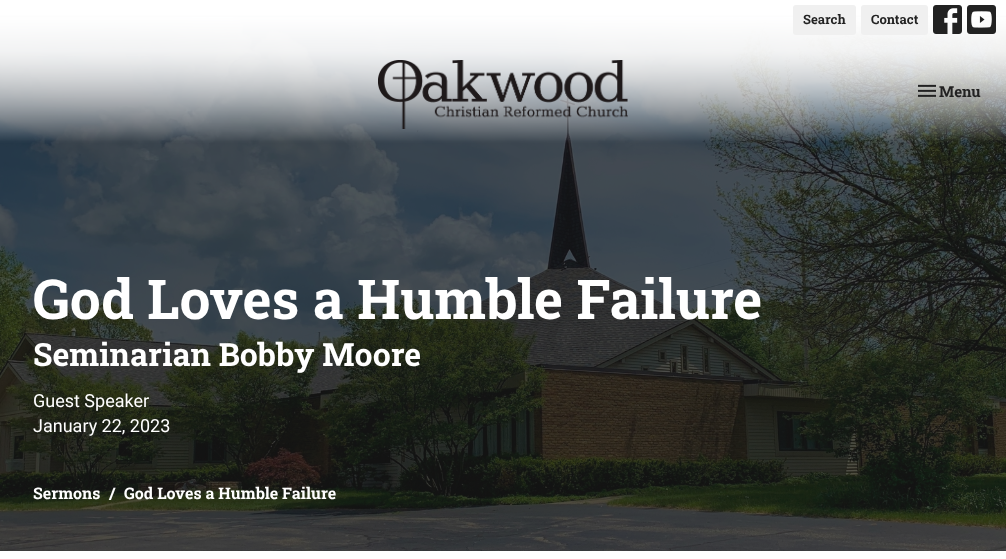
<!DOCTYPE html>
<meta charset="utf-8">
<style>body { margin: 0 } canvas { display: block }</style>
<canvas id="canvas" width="1006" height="559"></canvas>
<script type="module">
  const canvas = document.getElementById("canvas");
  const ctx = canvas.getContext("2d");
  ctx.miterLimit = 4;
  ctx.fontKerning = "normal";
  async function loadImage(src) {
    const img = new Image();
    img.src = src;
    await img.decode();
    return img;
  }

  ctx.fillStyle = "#ffffff";
  ctx.fillRect(0, 0, 1006, 559);
  ctx.drawImage(await loadImage("img5.png"), 0, 0, 1006, 551);
  ctx.fillStyle = "rgba(255, 255, 255, 0.77)";
  ctx.fillRect(0, 17, 1006, 23);
  ctx.fillStyle = "#f0f0f0";
  ctx.beginPath();
  ctx.roundRect(793, 5, 63, 30, 3);
  ctx.fill();
  ctx.font = "bold 13px Roboto Slab";
  ctx.fillStyle = "#222222";
  ctx.fillText("Search", 803, 24);
  ctx.fillStyle = "#f0f0f0";
  ctx.beginPath();
  ctx.roundRect(861, 5, 67, 30, 3);
  ctx.fill();
  ctx.fillStyle = "#222222";
  ctx.fillText("Contact", 871, 24);
  ctx.drawImage(await loadImage("img1.png"), 933, 5, 29, 29);
  ctx.drawImage(await loadImage("img2.png"), 967, 5, 29, 29);
  ctx.drawImage(await loadImage("img3.png"), 378, 60, 250, 69);
  ctx.drawImage(await loadImage("img4.png"), 918, 84, 18, 13);
  ctx.font = "bold 15px Roboto Slab";
  ctx.fillText("Menu", 939, 97);
  ctx.font = "bold 55px Roboto Slab";
  ctx.fillStyle = "#ffffff";
  ctx.fillText("God Loves a Humble Failure", 33, 319);
  ctx.font = "bold 32px Roboto Slab";
  ctx.fillText("Seminarian Bobby Moore", 33, 366);
  ctx.font = "18px Roboto";
  ctx.fillText("Guest Speaker", 33, 407);
  ctx.fillText("January 22, 2023", 33, 432);
  ctx.font = "bold 16px Roboto Slab";
  ctx.fillText("Sermons", 33, 499);
  ctx.fillText("/", 109, 499);
  ctx.fillText("God Loves a Humble Failure", 124, 499);
</script>
